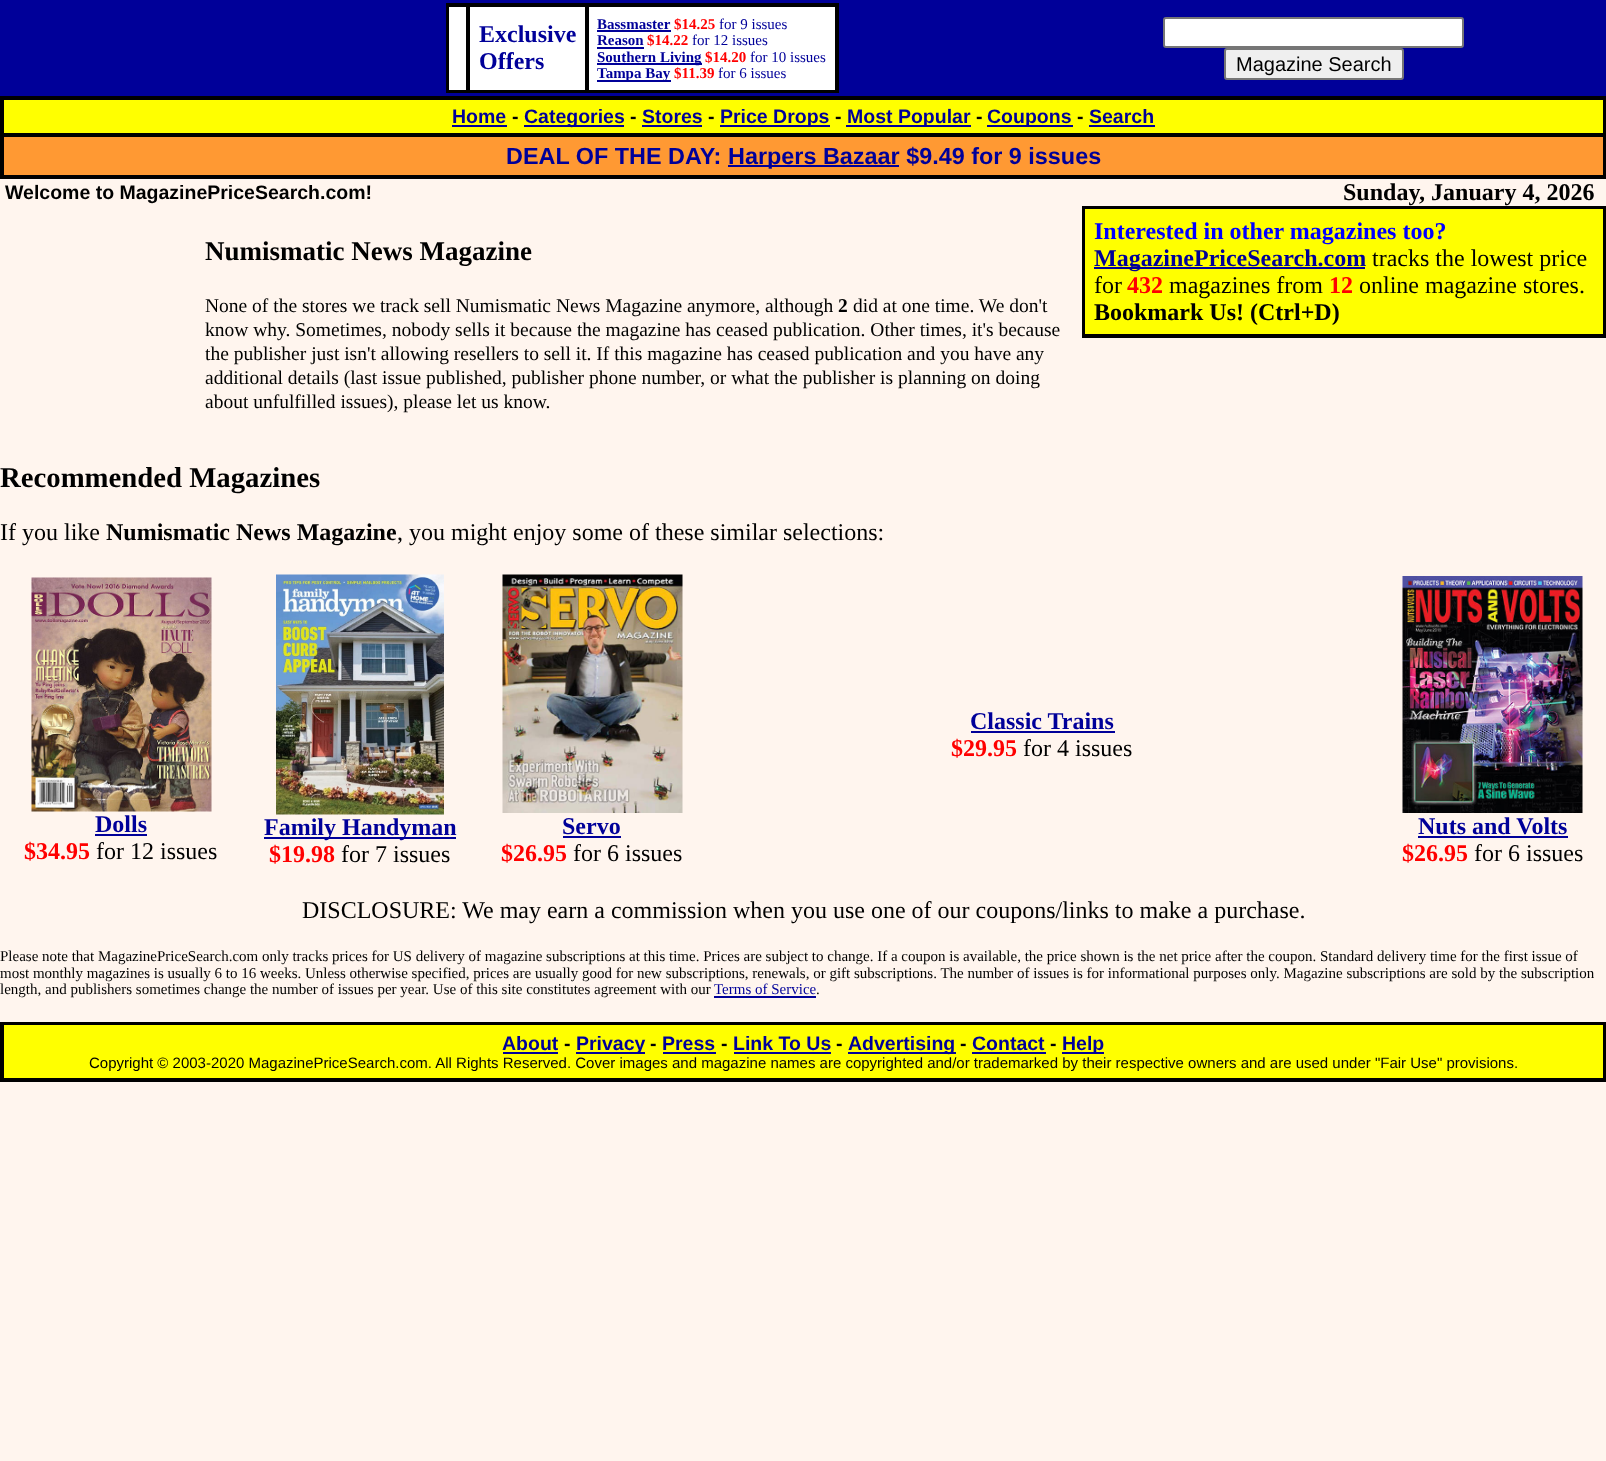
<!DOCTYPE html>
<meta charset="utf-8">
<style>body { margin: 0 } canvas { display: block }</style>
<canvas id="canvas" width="1606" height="1461"></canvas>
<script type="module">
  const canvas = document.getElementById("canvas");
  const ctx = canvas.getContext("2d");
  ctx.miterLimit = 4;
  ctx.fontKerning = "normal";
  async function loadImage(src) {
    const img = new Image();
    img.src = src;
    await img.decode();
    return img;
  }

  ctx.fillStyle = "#fff5ee";
  ctx.fillRect(0, 0, 1606, 1461);
  ctx.fillStyle = "#000099";
  ctx.fillRect(0, 0, 1606, 96);
  ctx.fillStyle = "#ffffff";
  ctx.fillRect(449, 7, 386, 83);
  ctx.strokeStyle = "#000000";
  ctx.lineWidth = 2;
  ctx.strokeRect(447, 4, 391, 88);
  ctx.strokeRect(448, 6, 19, 85);
  ctx.strokeRect(469, 6, 117, 85);
  ctx.font = "bold 24px Liberation Serif";
  ctx.fillStyle = "#000099";
  ctx.fillText("Exclusive", 479, 42);
  ctx.fillText("Offers", 479, 69);
  ctx.strokeRect(588, 6, 248, 85);
  ctx.font = "bold 15px Liberation Serif";
  ctx.fillText("Bassmaster", 597, 29);
  ctx.fillRect(597, 30, 74, 2);
  ctx.fillStyle = "#ff0000";
  ctx.fillText("$14.25", 674, 29);
  ctx.font = "15px Liberation Serif";
  ctx.fillStyle = "#000099";
  ctx.fillText("for 9 issues", 719, 29);
  ctx.font = "bold 15px Liberation Serif";
  ctx.fillText("Reason", 597, 45);
  ctx.fillRect(597, 47, 47, 2);
  ctx.fillStyle = "#ff0000";
  ctx.fillText("$14.22", 647, 45);
  ctx.font = "15px Liberation Serif";
  ctx.fillStyle = "#000099";
  ctx.fillText("for 12 issues", 692, 45);
  ctx.fillRect(597, 63, 105, 2);
  ctx.font = "bold 15px Liberation Serif";
  ctx.fillText("Southern Living", 597, 62);
  ctx.fillStyle = "#ff0000";
  ctx.fillText("$14.20", 705, 62);
  ctx.font = "15px Liberation Serif";
  ctx.fillStyle = "#000099";
  ctx.fillText("for 10 issues", 750, 62);
  ctx.fillRect(597, 80, 74, 2);
  ctx.font = "bold 15px Liberation Serif";
  ctx.fillText("Tampa Bay", 597, 78);
  ctx.fillStyle = "#ff0000";
  ctx.fillText("$11.39", 674, 78);
  ctx.font = "15px Liberation Serif";
  ctx.fillStyle = "#000099";
  ctx.fillText("for 6 issues", 718, 78);
  ctx.fillStyle = "#ffffff";
  ctx.beginPath();
  ctx.roundRect(1164, 18, 299, 29, 2);
  ctx.fill();
  ctx.strokeStyle = "#767676";
  ctx.stroke();
  ctx.fillStyle = "#efefef";
  ctx.beginPath();
  ctx.roundRect(1225, 49, 178, 30, 2);
  ctx.fill();
  ctx.stroke();
  ctx.font = "20px Liberation Sans";
  ctx.fillStyle = "#000000";
  ctx.fillText("Magazine Search", 1236, 71);
  ctx.fillStyle = "#ffff00";
  ctx.fillRect(4, 100, 1599, 33);
  ctx.strokeStyle = "#000000";
  ctx.strokeRect(1, 97, 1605, 81);
  ctx.strokeRect(3, 99, 1601, 35);
  ctx.font = "bold 19.5px Liberation Sans";
  ctx.fillStyle = "#000099";
  ctx.fillText("Home", 452, 123);
  ctx.fillRect(452, 125, 55, 2);
  ctx.fillStyle = "#000000";
  ctx.fillText("-", 512, 123);
  ctx.fillStyle = "#000099";
  ctx.fillRect(524, 125, 100, 2);
  ctx.fillText("Categories", 524, 123);
  ctx.fillStyle = "#000000";
  ctx.fillText("-", 630, 123);
  ctx.fillStyle = "#000099";
  ctx.fillText("Stores", 642, 123);
  ctx.fillRect(642, 125, 60, 2);
  ctx.fillStyle = "#000000";
  ctx.fillText("-", 708, 123);
  ctx.fillStyle = "#000099";
  ctx.fillRect(720, 125, 110, 2);
  ctx.fillText("Price Drops", 720, 123);
  ctx.fillStyle = "#000000";
  ctx.fillText("-", 835, 123);
  ctx.fillStyle = "#000099";
  ctx.fillRect(846, 125, 125, 2);
  ctx.fillText("Most Popular", 847, 123);
  ctx.fillStyle = "#000000";
  ctx.fillText("-", 976, 123);
  ctx.fillStyle = "#000099";
  ctx.fillRect(987, 125, 86, 2);
  ctx.fillText("Coupons", 987, 123);
  ctx.fillStyle = "#000000";
  ctx.fillText("-", 1077, 123);
  ctx.fillStyle = "#000099";
  ctx.fillText("Search", 1089, 123);
  ctx.fillRect(1089, 125, 66, 2);
  ctx.fillStyle = "#ff9933";
  ctx.beginPath();
  ctx.rect(3, 136, 1601, 40);
  ctx.fill();
  ctx.stroke();
  ctx.font = "bold 23.4px Liberation Sans";
  ctx.fillStyle = "#000099";
  ctx.fillText("DEAL OF THE DAY:", 506, 164);
  ctx.fillRect(728, 165, 171, 2);
  ctx.fillText("Harpers Bazaar $9.49 for 9 issues", 728, 164);
  ctx.font = "bold 19.5px Liberation Sans";
  ctx.fillStyle = "#000000";
  ctx.fillText("Welcome to MagazinePriceSearch.com!", 5, 199);
  ctx.font = "bold 24px Liberation Serif";
  ctx.fillText("Sunday, January 4, 2026", 1343, 200);
  ctx.font = "bold 27px Liberation Serif";
  ctx.fillText("Numismatic News Magazine", 205, 260);
  ctx.font = "19.5px Liberation Serif";
  ctx.fillText("None of the stores we track sell Numismatic News Magazine anymore, although", 205, 312);
  ctx.font = "bold 19.5px Liberation Serif";
  ctx.fillText("2", 838, 312);
  ctx.font = "19.5px Liberation Serif";
  ctx.fillText("did at one time. We don't", 853, 312);
  ctx.fillText("know why. Sometimes, nobody sells it because the magazine has ceased publication. Other times, it's because", 205, 336);
  ctx.fillText("the publisher just isn't allowing resellers to sell it. If this magazine has ceased publication and you have any", 205, 360);
  ctx.fillText("additional details (last issue published, publisher phone number, or what the publisher is planning on doing", 205, 384);
  ctx.fillText("about unfulfilled issues), please let us know.", 205, 408);
  ctx.fillStyle = "#ffff00";
  ctx.fillRect(1085, 209, 518, 125);
  ctx.strokeRect(1083, 207, 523, 130);
  ctx.strokeRect(1084, 208, 520, 127);
  ctx.font = "bold 24px Liberation Serif";
  ctx.fillStyle = "#0000ff";
  ctx.fillText("Interested in other magazines too?", 1094, 239);
  ctx.fillStyle = "#000099";
  ctx.fillRect(1094, 267, 271, 2);
  ctx.fillText("MagazinePriceSearch.com", 1094, 266);
  ctx.font = "24px Liberation Serif";
  ctx.fillStyle = "#000000";
  ctx.fillText("tracks the lowest price", 1372, 266);
  ctx.fillText("for", 1094, 293);
  ctx.font = "bold 24px Liberation Serif";
  ctx.fillStyle = "#ff0000";
  ctx.fillText("432", 1127, 293);
  ctx.font = "24px Liberation Serif";
  ctx.fillStyle = "#000000";
  ctx.fillText("magazines from", 1169, 293);
  ctx.font = "bold 24px Liberation Serif";
  ctx.fillStyle = "#ff0000";
  ctx.fillText("12", 1329, 293);
  ctx.font = "24px Liberation Serif";
  ctx.fillStyle = "#000000";
  ctx.fillText("online magazine stores.", 1359, 293);
  ctx.font = "bold 24px Liberation Serif";
  ctx.fillText("Bookmark Us! (Ctrl+D)", 1094, 320);
  ctx.font = "bold 28.75px Liberation Serif";
  ctx.fillText("Recommended Magazines", 0, 487);
  ctx.font = "24px Liberation Serif";
  ctx.fillText("If you like", 0, 540);
  ctx.font = "bold 24px Liberation Serif";
  ctx.fillText("Numismatic News Magazine", 106, 540);
  ctx.font = "24px Liberation Serif";
  ctx.fillText(", you might enjoy some of these similar selections:", 397, 540);
  ctx.font = "bold 24px Liberation Serif";
  ctx.fillStyle = "#000099";
  ctx.fillText("Classic Trains", 970, 729);
  ctx.fillRect(971, 731, 144, 2);
  ctx.fillStyle = "#ff0000";
  ctx.fillText("$29.95", 951, 756);
  ctx.font = "24px Liberation Serif";
  ctx.fillStyle = "#000000";
  ctx.fillText("for 4 issues", 1023, 756);
  ctx.drawImage(await loadImage("img1.png"), 31, 577, 181, 235);
  ctx.font = "bold 24px Liberation Serif";
  ctx.fillStyle = "#000099";
  ctx.fillText("Dolls", 95, 832);
  ctx.fillRect(95, 834, 52, 2);
  ctx.fillStyle = "#ff0000";
  ctx.fillText("$34.95", 24, 859);
  ctx.font = "24px Liberation Serif";
  ctx.fillStyle = "#000000";
  ctx.fillText("for 12 issues", 96, 859);
  ctx.drawImage(await loadImage("img2.png"), 276, 574, 168, 241);
  ctx.fillStyle = "#000099";
  ctx.fillRect(264, 837, 192, 2);
  ctx.font = "bold 24px Liberation Serif";
  ctx.fillText("Family Handyman", 264, 835);
  ctx.fillStyle = "#ff0000";
  ctx.fillText("$19.98", 269, 862);
  ctx.font = "24px Liberation Serif";
  ctx.fillStyle = "#000000";
  ctx.fillText("for 7 issues", 341, 862);
  ctx.drawImage(await loadImage("img3.png"), 502, 574, 181, 239);
  ctx.font = "bold 24px Liberation Serif";
  ctx.fillStyle = "#000099";
  ctx.fillText("Servo", 562, 834);
  ctx.fillRect(563, 836, 58, 2);
  ctx.fillStyle = "#ff0000";
  ctx.fillText("$26.95", 501, 861);
  ctx.font = "24px Liberation Serif";
  ctx.fillStyle = "#000000";
  ctx.fillText("for 6 issues", 573, 861);
  ctx.drawImage(await loadImage("img4.png"), 1402, 576, 181, 237);
  ctx.font = "bold 24px Liberation Serif";
  ctx.fillStyle = "#000099";
  ctx.fillText("Nuts and Volts", 1418, 834);
  ctx.fillRect(1418, 836, 150, 2);
  ctx.fillStyle = "#ff0000";
  ctx.fillText("$26.95", 1402, 861);
  ctx.font = "24px Liberation Serif";
  ctx.fillStyle = "#000000";
  ctx.fillText("for 6 issues", 1474, 861);
  ctx.fillText("DISCLOSURE: We may earn a commission when you use one of our coupons/links to make a purchase.", 302, 918);
  ctx.font = "15px Liberation Serif";
  ctx.fillText("Please note that MagazinePriceSearch.com only tracks prices for US delivery of magazine subscriptions at this time. Prices are subject to change. If a coupon is available, the price shown is the net price after the coupon. Standard delivery time for the first issue of", 0, 961);
  ctx.fillText("most monthly magazines is usually 6 to 16 weeks. Unless otherwise specified, prices are usually good for new subscriptions, renewals, or gift subscriptions. The number of issues is for informational purposes only. Magazine subscriptions are sold by the subscription", 0, 978);
  ctx.fillText("length, and publishers sometimes change the number of issues per year. Use of this site constitutes agreement with our", 0, 994);
  ctx.fillStyle = "#000099";
  ctx.fillText("Terms of Service", 714, 994);
  ctx.fillStyle = "#000000";
  ctx.fillText(".", 816, 994);
  ctx.fillStyle = "#000099";
  ctx.fillRect(714, 996, 102, 2);
  ctx.fillStyle = "#ffff00";
  ctx.fillRect(4, 1025, 1599, 53);
  ctx.strokeRect(1, 1023, 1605, 58);
  ctx.strokeRect(3, 1024, 1601, 55);
  ctx.font = "bold 19.5px Liberation Sans";
  ctx.fillStyle = "#000099";
  ctx.fillText("About", 502, 1050);
  ctx.fillRect(503, 1052, 55, 2);
  ctx.fillStyle = "#000000";
  ctx.fillText("-", 564, 1050);
  ctx.fillStyle = "#000099";
  ctx.fillRect(576, 1052, 69, 2);
  ctx.fillText("Privacy", 576, 1050);
  ctx.fillStyle = "#000000";
  ctx.fillText("-", 650, 1050);
  ctx.fillStyle = "#000099";
  ctx.fillText("Press", 662, 1050);
  ctx.fillRect(663, 1052, 53, 2);
  ctx.fillStyle = "#000000";
  ctx.fillText("-", 721, 1050);
  ctx.fillStyle = "#000099";
  ctx.fillText("Link To Us", 733, 1050);
  ctx.fillRect(734, 1052, 97, 2);
  ctx.fillStyle = "#000000";
  ctx.fillText("-", 836, 1050);
  ctx.fillStyle = "#000099";
  ctx.fillRect(848, 1052, 108, 2);
  ctx.fillText("Advertising", 848, 1050);
  ctx.fillStyle = "#000000";
  ctx.fillText("-", 960, 1050);
  ctx.fillStyle = "#000099";
  ctx.fillText("Contact", 972, 1050);
  ctx.fillRect(972, 1052, 74, 2);
  ctx.fillStyle = "#000000";
  ctx.fillText("-", 1050, 1050);
  ctx.fillStyle = "#000099";
  ctx.fillRect(1062, 1052, 42, 2);
  ctx.fillText("Help", 1062, 1050);
  ctx.font = "15px Liberation Sans";
  ctx.fillStyle = "#000000";
  ctx.fillText("Copyright © 2003-2020 MagazinePriceSearch.com. All Rights Reserved. Cover images and magazine names are copyrighted and/or trademarked by their respective owners and are used under \"Fair Use\" provisions.", 89, 1068);
</script>
